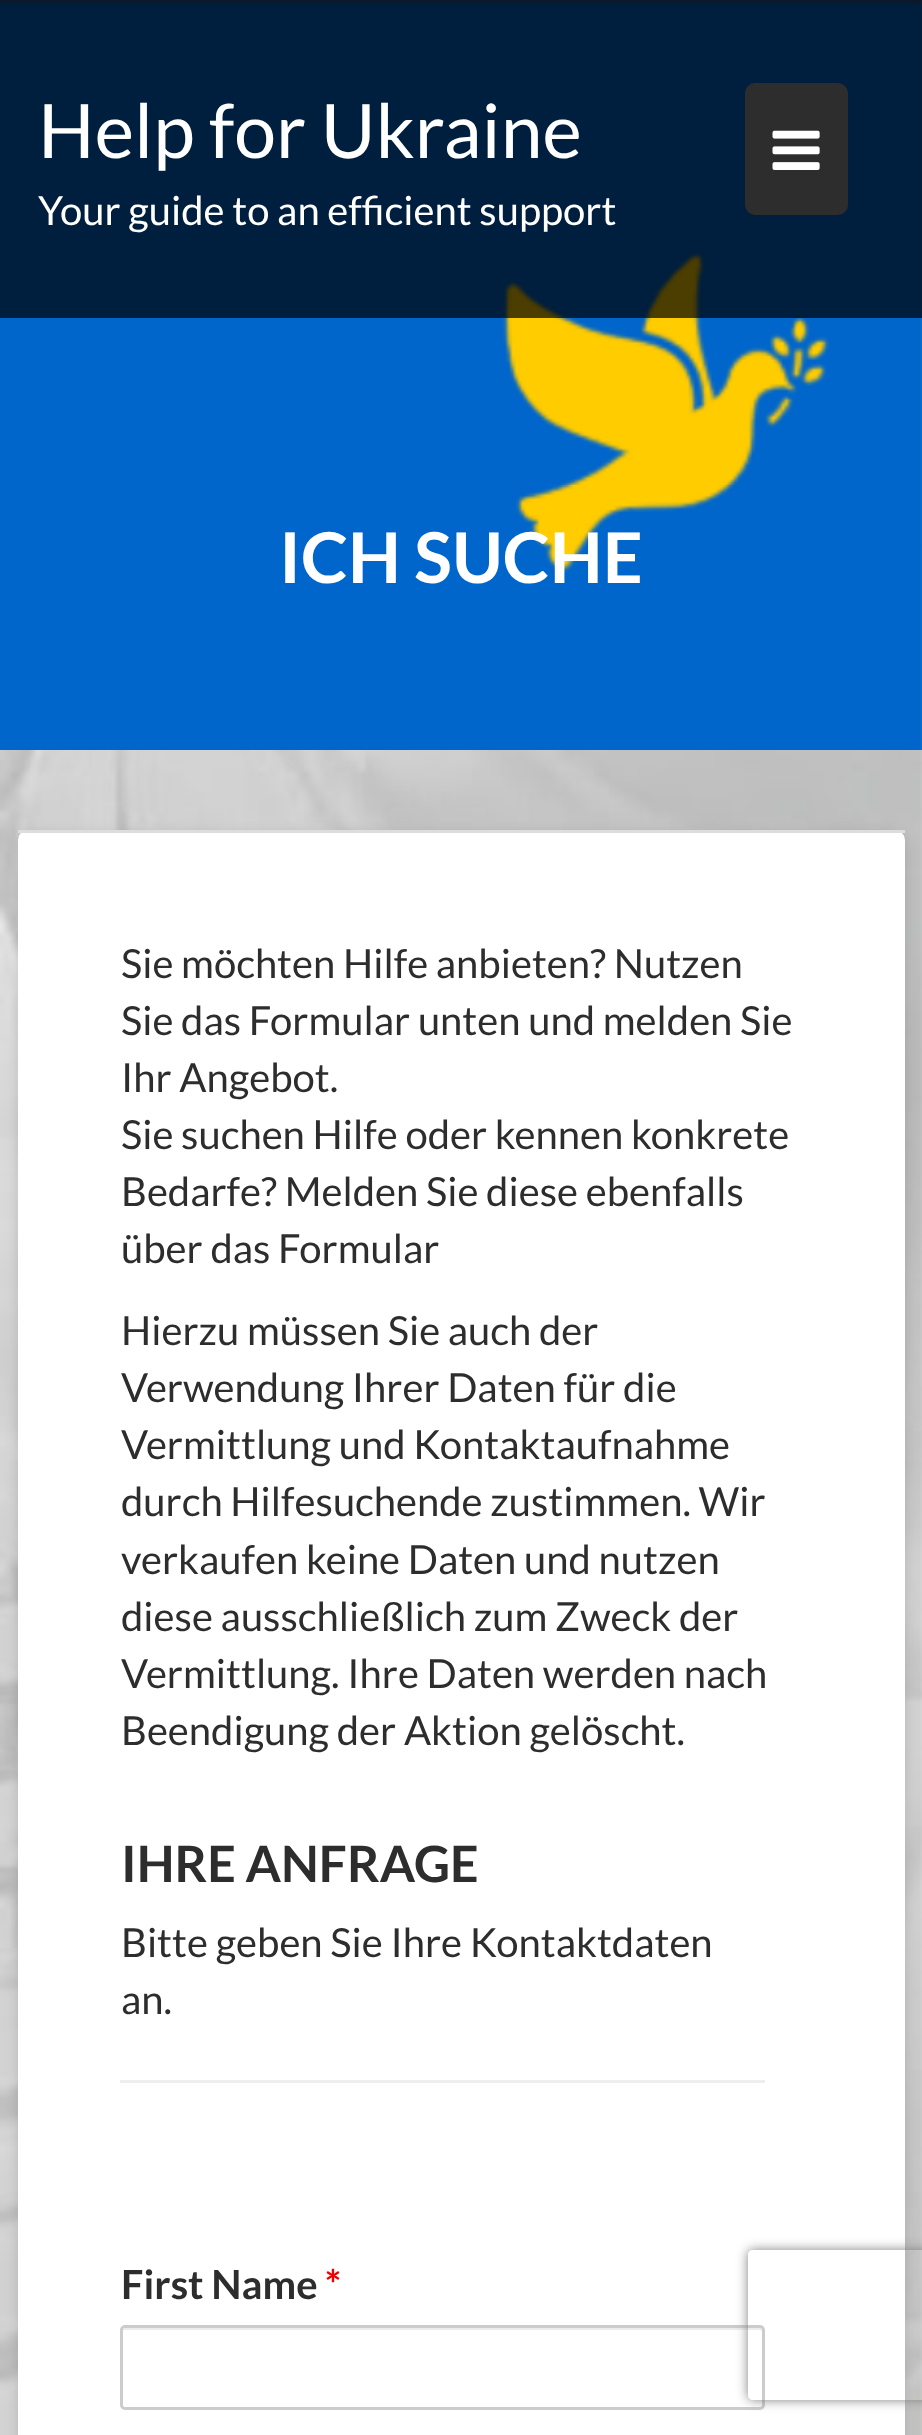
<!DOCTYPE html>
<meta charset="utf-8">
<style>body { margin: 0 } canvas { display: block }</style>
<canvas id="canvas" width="922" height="2435"></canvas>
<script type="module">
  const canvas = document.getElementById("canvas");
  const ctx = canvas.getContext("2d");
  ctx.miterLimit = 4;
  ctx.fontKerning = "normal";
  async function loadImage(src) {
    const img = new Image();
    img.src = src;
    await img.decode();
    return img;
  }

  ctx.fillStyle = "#ffffff";
  ctx.fillRect(0, 0, 922, 2435);
  ctx.drawImage(await loadImage("img1.png"), 0, 0, 922, 2435);
  ctx.drawImage(await loadImage("img3.png"), 0, 0, 922, 750);
  ctx.fillStyle = "rgba(0, 0, 0, 0.7)";
  ctx.fillRect(0, 0, 922, 318);
  ctx.font = "75px Lato";
  ctx.fillStyle = "#ffffff";
  ctx.fillText("Help for Ukraine", 38, 158);
  ctx.fillStyle = "#2d2d2d";
  ctx.beginPath();
  ctx.roundRect(745, 83, 103, 132, 10);
  ctx.fill();
  ctx.drawImage(await loadImage("img2.png"), 772, 130, 48, 40);
  ctx.font = "40px Lato";
  ctx.fillStyle = "#ffffff";
  ctx.fillText("Your guide to an efficient support", 38, 225);
  ctx.font = "bold 70px Lato";
  ctx.fillText("ICH SUCHE", 279, 583);
  ctx.fillStyle = "rgba(0, 0, 0, 0.13)";
  ctx.filter = "blur(7px)";
  ctx.beginPath();
  ctx.roundRect(18, 835, 887, 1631, 10);
  ctx.fill();
  ctx.filter = "none";
  ctx.fillStyle = "#ffffff";
  ctx.beginPath();
  ctx.roundRect(18, 830, 887, 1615, 10);
  ctx.fill();
  ctx.fillStyle = "#dddddd";
  ctx.fillRect(18, 830, 887, 3);
  ctx.font = "40px Lato";
  ctx.fillStyle = "#2d2d2d";
  ctx.fillText("Sie möchten Hilfe anbieten? Nutzen", 121, 978);
  ctx.fillText("Sie das Formular unten und melden Sie", 121, 1035);
  ctx.fillText("Ihr Angebot.", 121, 1092);
  ctx.fillText("Sie suchen Hilfe oder kennen konkrete", 121, 1149);
  ctx.fillText("Bedarfe? Melden Sie diese ebenfalls", 121, 1206);
  ctx.fillText("über das Formular", 121, 1263);
  ctx.fillText("Hierzu müssen Sie auch der", 121, 1345);
  ctx.fillText("Verwendung Ihrer Daten für die", 121, 1402);
  ctx.fillText("Vermittlung und Kontaktaufnahme", 121, 1459);
  ctx.fillText("durch Hilfesuchende zustimmen. Wir", 121, 1516);
  ctx.fillText("verkaufen keine Daten und nutzen", 121, 1574);
  ctx.fillText("diese ausschließlich zum Zweck der", 121, 1631);
  ctx.fillText("Vermittlung. Ihre Daten werden nach", 121, 1688);
  ctx.fillText("Beendigung der Aktion gelöscht.", 121, 1745);
  ctx.font = "bold 50px Lato";
  ctx.fillText("IHRE ANFRAGE", 121, 1882);
  ctx.font = "40px Lato";
  ctx.fillText("Bitte geben Sie Ihre Kontaktdaten", 121, 1957);
  ctx.fillText("an.", 121, 2014);
  ctx.fillStyle = "#eeeeee";
  ctx.fillRect(120, 2080, 645, 3);
  ctx.font = "bold 40px Lato";
  ctx.fillStyle = "#2d2d2d";
  ctx.fillText("First Name", 121, 2299);
  ctx.fillStyle = "#ee0000";
  ctx.fillText("*", 325, 2299);
  ctx.fillStyle = "#ececec";
  ctx.beginPath();
  ctx.moveTo(125, 2330);
  ctx.lineTo(760, 2330);
  ctx.bezierCurveTo(761, 2330, 762, 2331, 762, 2332);
  ctx.lineTo(762, 2408);
  ctx.bezierCurveTo(763, 2407, 763, 2406, 763, 2406);
  ctx.lineTo(763, 2330);
  ctx.bezierCurveTo(763, 2329, 762, 2328, 760, 2328);
  ctx.lineTo(126, 2328);
  ctx.bezierCurveTo(124, 2328, 123, 2329, 123, 2330);
  ctx.closePath();
  ctx.fill();
  ctx.beginPath();
  ctx.roundRect(121.5, 2326.5, 642, 82, 3.5);
  ctx.strokeStyle = "#cccccc";
  ctx.lineWidth = 3;
  ctx.stroke();
  ctx.save();
  ctx.beginPath();
  ctx.moveTo(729, 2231);
  ctx.lineTo(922, 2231);
  ctx.lineTo(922, 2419);
  ctx.lineTo(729, 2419);
  ctx.closePath();
  ctx.moveTo(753, 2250);
  ctx.lineTo(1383, 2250);
  ctx.bezierCurveTo(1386, 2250, 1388, 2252, 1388, 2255);
  ctx.lineTo(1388, 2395);
  ctx.bezierCurveTo(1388, 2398, 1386, 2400, 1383, 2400);
  ctx.lineTo(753, 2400);
  ctx.bezierCurveTo(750, 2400, 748, 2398, 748, 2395);
  ctx.lineTo(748, 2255);
  ctx.bezierCurveTo(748, 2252, 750, 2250, 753, 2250);
  ctx.closePath();
  ctx.clip("evenodd");
  ctx.fillStyle = "#808080";
  ctx.filter = "blur(6px)";
  ctx.beginPath();
  ctx.roundRect(748, 2250, 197, 150, 5);
  ctx.fill();
  ctx.filter = "none";
  ctx.restore();
</script>
